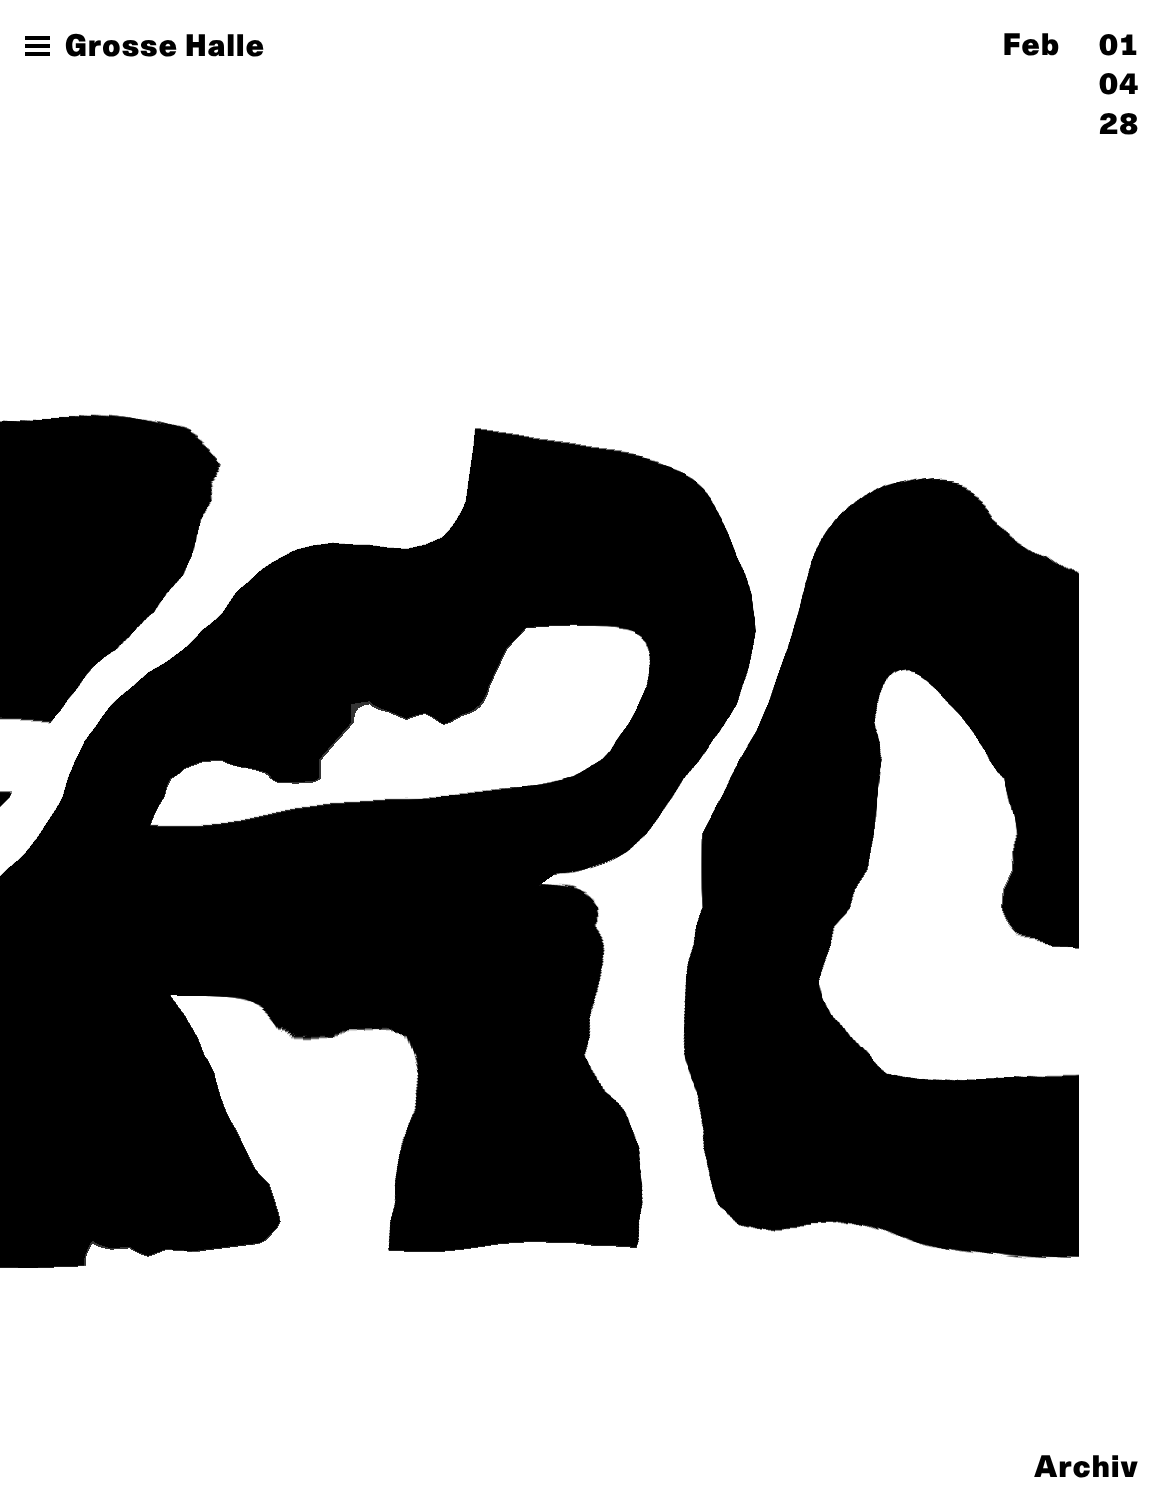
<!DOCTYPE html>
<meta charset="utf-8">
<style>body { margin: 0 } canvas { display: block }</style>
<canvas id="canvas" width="1164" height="1511"></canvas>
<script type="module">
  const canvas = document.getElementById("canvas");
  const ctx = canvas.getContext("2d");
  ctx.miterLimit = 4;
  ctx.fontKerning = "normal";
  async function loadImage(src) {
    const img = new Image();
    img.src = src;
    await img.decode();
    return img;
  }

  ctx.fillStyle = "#ffffff";
  ctx.fillRect(0, 0, 1164, 1511);
  ctx.fillStyle = "#000000";
  ctx.fillRect(25, 36, 25, 4);
  ctx.fillRect(25, 44, 25, 4);
  ctx.fillRect(25, 52, 25, 4);
  ctx.letterSpacing = "1.25px";
  ctx.font = "900 30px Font";
  ctx.fillText("Grosse Halle", 65, 56);
  ctx.fillText("Feb", 1003, 55);
  ctx.font = "900 30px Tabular";
  ctx.fillText("01", 1099, 55);
  ctx.fillText("04", 1099, 94);
  ctx.fillText("28", 1099, 134);
  ctx.font = "900 30px Font";
  ctx.fillText("Archiv", 1034, 1477);
  ctx.drawImage(await loadImage("img1.png"), 0, 414, 1079, 854);
</script>
